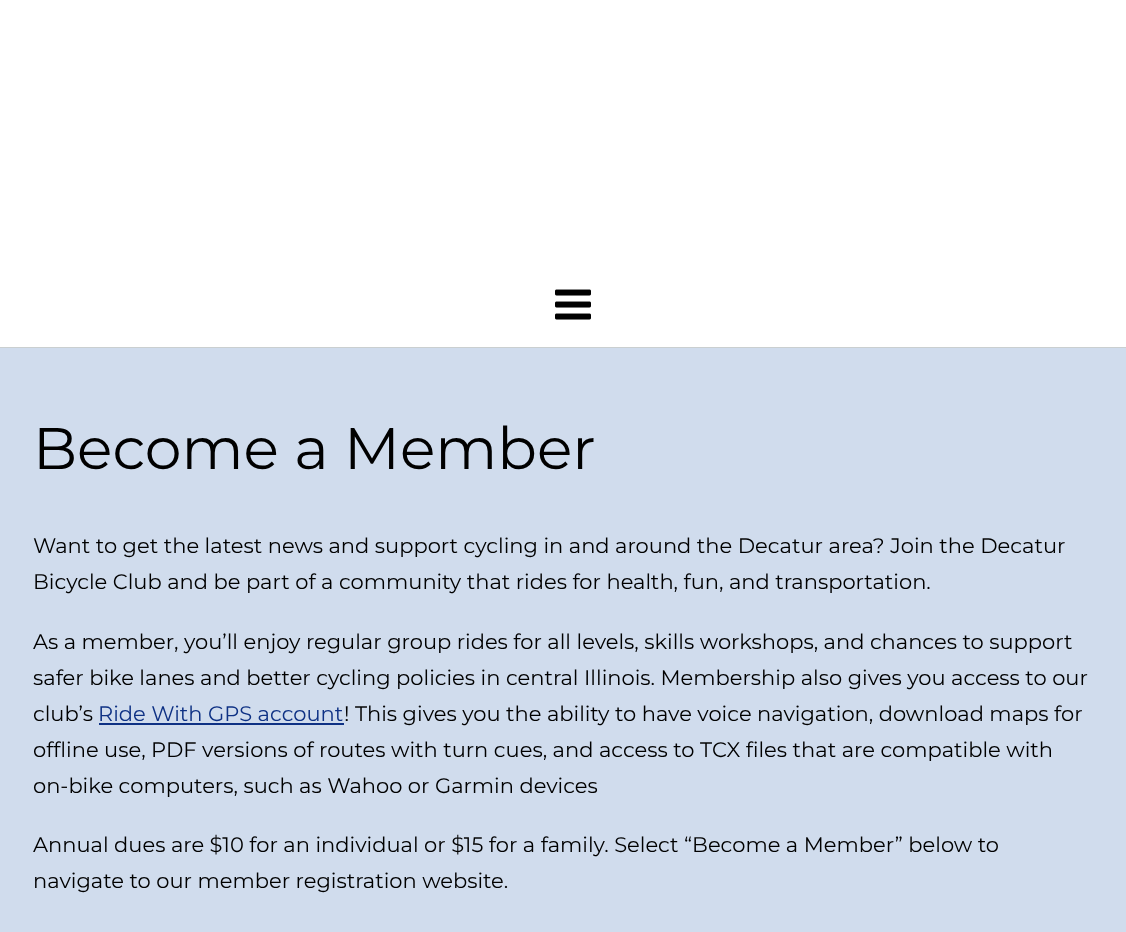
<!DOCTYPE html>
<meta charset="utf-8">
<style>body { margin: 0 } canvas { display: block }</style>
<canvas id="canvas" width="1126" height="932"></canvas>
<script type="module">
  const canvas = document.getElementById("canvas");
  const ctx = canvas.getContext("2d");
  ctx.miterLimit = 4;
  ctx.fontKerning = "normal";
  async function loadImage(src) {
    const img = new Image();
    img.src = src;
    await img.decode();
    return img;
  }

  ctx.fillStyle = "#ffffff";
  ctx.fillRect(0, 0, 1126, 932);
  ctx.fillStyle = "#cacfd0";
  ctx.fillRect(0, 347, 1126, 1);
  ctx.drawImage(await loadImage("img1.png"), 555, 289, 36, 31);
  ctx.fillStyle = "#d0dced";
  ctx.fillRect(0, 348, 1126, 584);
  ctx.font = "58.5px Montserrat";
  ctx.fillStyle = "#000000";
  ctx.fillText("Become a Member", 33, 469);
  ctx.font = "21px Montserrat";
  ctx.fillText("Want to get the latest news and support cycling in and around the Decatur area? Join the Decatur", 33, 553);
  ctx.fillText("Bicycle Club and be part of a community that rides for health, fun, and transportation.", 33, 589);
  ctx.fillText("As a member, you’ll enjoy regular group rides for all levels, skills workshops, and chances to support", 33, 649);
  ctx.fillText("safer bike lanes and better cycling policies in central Illinois. Membership also gives you access to our", 33, 685);
  ctx.fillText("club’s", 33, 721);
  ctx.fillStyle = "#0e3184";
  ctx.fillText("Ride With GPS account", 98, 721);
  ctx.fillRect(99, 723, 245, 2);
  ctx.fillStyle = "#000000";
  ctx.fillText("! This gives you the ability to have voice navigation, download maps for", 344, 721);
  ctx.fillText("offline use, PDF versions of routes with turn cues, and access to TCX files that are compatible with", 33, 757);
  ctx.fillText("on-bike computers, such as Wahoo or Garmin devices", 33, 793);
  ctx.fillText("Annual dues are $10 for an individual or $15 for a family. Select “Become a Member” below to", 33, 852);
  ctx.fillText("navigate to our member registration website.", 33, 888);
</script>
